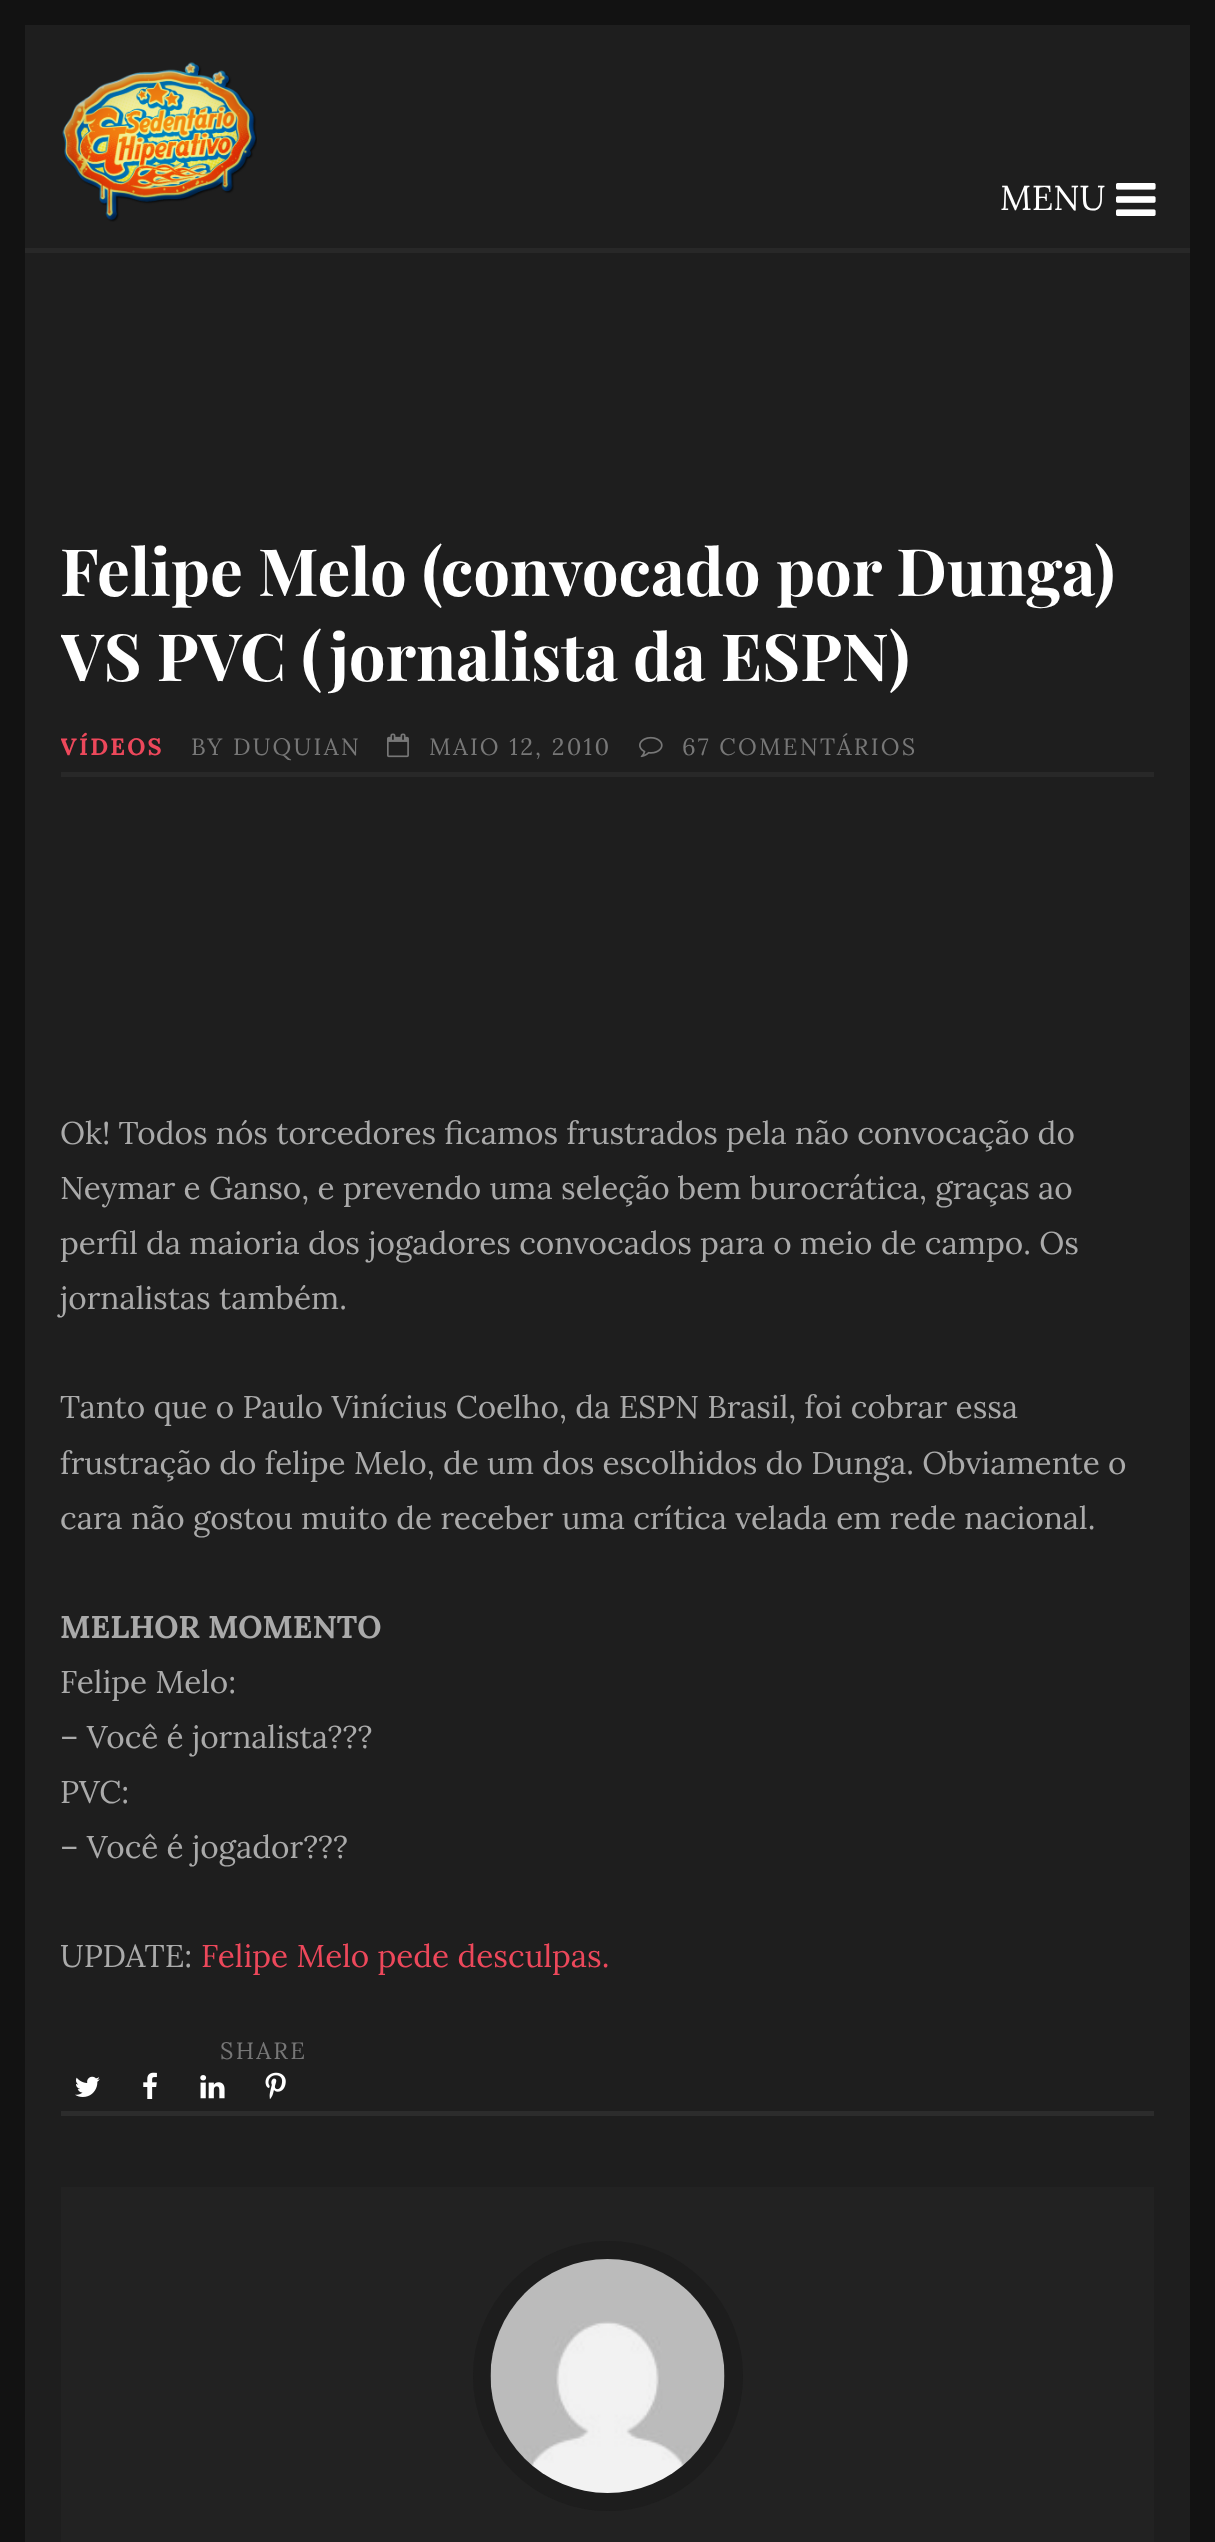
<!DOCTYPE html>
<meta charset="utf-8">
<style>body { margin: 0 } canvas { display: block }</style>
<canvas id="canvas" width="1215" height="2542"></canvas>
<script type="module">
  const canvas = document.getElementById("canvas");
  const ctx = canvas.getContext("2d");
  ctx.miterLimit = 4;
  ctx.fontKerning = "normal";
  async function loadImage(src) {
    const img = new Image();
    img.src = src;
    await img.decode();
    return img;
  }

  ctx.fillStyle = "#121212";
  ctx.fillRect(0, 0, 1215, 2542);
  ctx.fillStyle = "#1e1e1e";
  ctx.fillRect(25, 25, 1165, 2517);
  ctx.fillStyle = "#282828";
  ctx.fillRect(25, 248, 1165, 5);
  ctx.drawImage(await loadImage("img1.png"), 62, 62, 195, 160);
  ctx.font = "34.5px Lora";
  ctx.fillStyle = "#ffffff";
  ctx.fillText("MENU", 1000, 210);
  ctx.drawImage(await loadImage("img2.png"), 1116, 183, 40, 33);
  ctx.fillStyle = "#282828";
  ctx.fillRect(61, 772, 1093, 5);
  ctx.font = "bold 65.3px Playfair Display";
  ctx.fillStyle = "#ffffff";
  ctx.fillText("Felipe Melo (convocado por Dunga)", 60, 596);
  ctx.save();
  ctx.beginPath();
  ctx.rect(61, 529, 1093, 243);
  ctx.clip();
  ctx.fillText("VS PVC (jornalista da ESPN)", 60, 681);
  ctx.letterSpacing = "2.25px";
  ctx.font = "bold 23.6px Lora";
  ctx.fillStyle = "#ed485b";
  ctx.fillText("VÍDEOS", 60, 755);
  ctx.restore();
  ctx.letterSpacing = "2.25px";
  ctx.font = "23.6px Lora";
  ctx.fillStyle = "#777777";
  ctx.fillText("BY DUQUIAN", 191, 755);
  ctx.drawImage(await loadImage("img3.png"), 387, 733, 22, 25);
  ctx.fillText("MAIO 12, 2010", 429, 755);
  ctx.drawImage(await loadImage("img4.png"), 639, 736, 24, 22);
  ctx.fillText("67 COMENTÁRIOS", 682, 755);
  ctx.letterSpacing = "0px";
  ctx.font = "31.5px Lora";
  ctx.fillStyle = "#aaaaaa";
  ctx.fillText("Ok! Todos nós torcedores ficamos frustrados pela não convocação do", 60, 1144);
  ctx.fillText("Neymar e Ganso, e prevendo uma seleção bem burocrática, graças ao", 60, 1199);
  ctx.fillText("perfil da maioria dos jogadores convocados para o meio de campo. Os", 60, 1254);
  ctx.fillText("jornalistas também.", 60, 1309);
  ctx.fillText("Tanto que o Paulo Vinícius Coelho, da ESPN Brasil, foi cobrar essa", 60, 1418);
  ctx.fillText("frustração do felipe Melo, de um dos escolhidos do Dunga. Obviamente o", 60, 1474);
  ctx.fillText("cara não gostou muito de receber uma crítica velada em rede nacional.", 60, 1529);
  ctx.font = "bold 31.5px Lora";
  ctx.fillText("MELHOR MOMENTO", 60, 1638);
  ctx.font = "31.5px Lora";
  ctx.fillText("Felipe Melo:", 60, 1693);
  ctx.fillText("– Você é jornalista???", 60, 1748);
  ctx.fillText("PVC:", 60, 1803);
  ctx.fillText("– Você é jogador???", 60, 1858);
  ctx.fillText("UPDATE:", 60, 1967);
  ctx.fillStyle = "#ed485b";
  ctx.fillText("Felipe Melo pede desculpas.", 201, 1967);
  ctx.fillStyle = "#2c2c2c";
  ctx.fillRect(61, 2111, 1093, 5);
  ctx.letterSpacing = "2.25px";
  ctx.font = "23.6px Lora";
  ctx.fillStyle = "#777777";
  ctx.fillText("SHARE", 220, 2059);
  ctx.drawImage(await loadImage("img5.png"), 75, 2076, 25, 21);
  ctx.drawImage(await loadImage("img6.png"), 143, 2072, 14, 27);
  ctx.drawImage(await loadImage("img7.png"), 200, 2075, 25, 24);
  ctx.drawImage(await loadImage("img8.png"), 265, 2072, 21, 27);
  ctx.fillStyle = "#222222";
  ctx.fillRect(61, 2187, 1093, 355);
  ctx.beginPath();
  ctx.arc(608, 2376, 126, 0, Math.PI * 2);
  ctx.strokeStyle = "#1d1d1d";
  ctx.lineWidth = 18;
  ctx.stroke();
  ctx.drawImage(await loadImage("img9.png"), 490, 2259, 235, 234);
</script>
